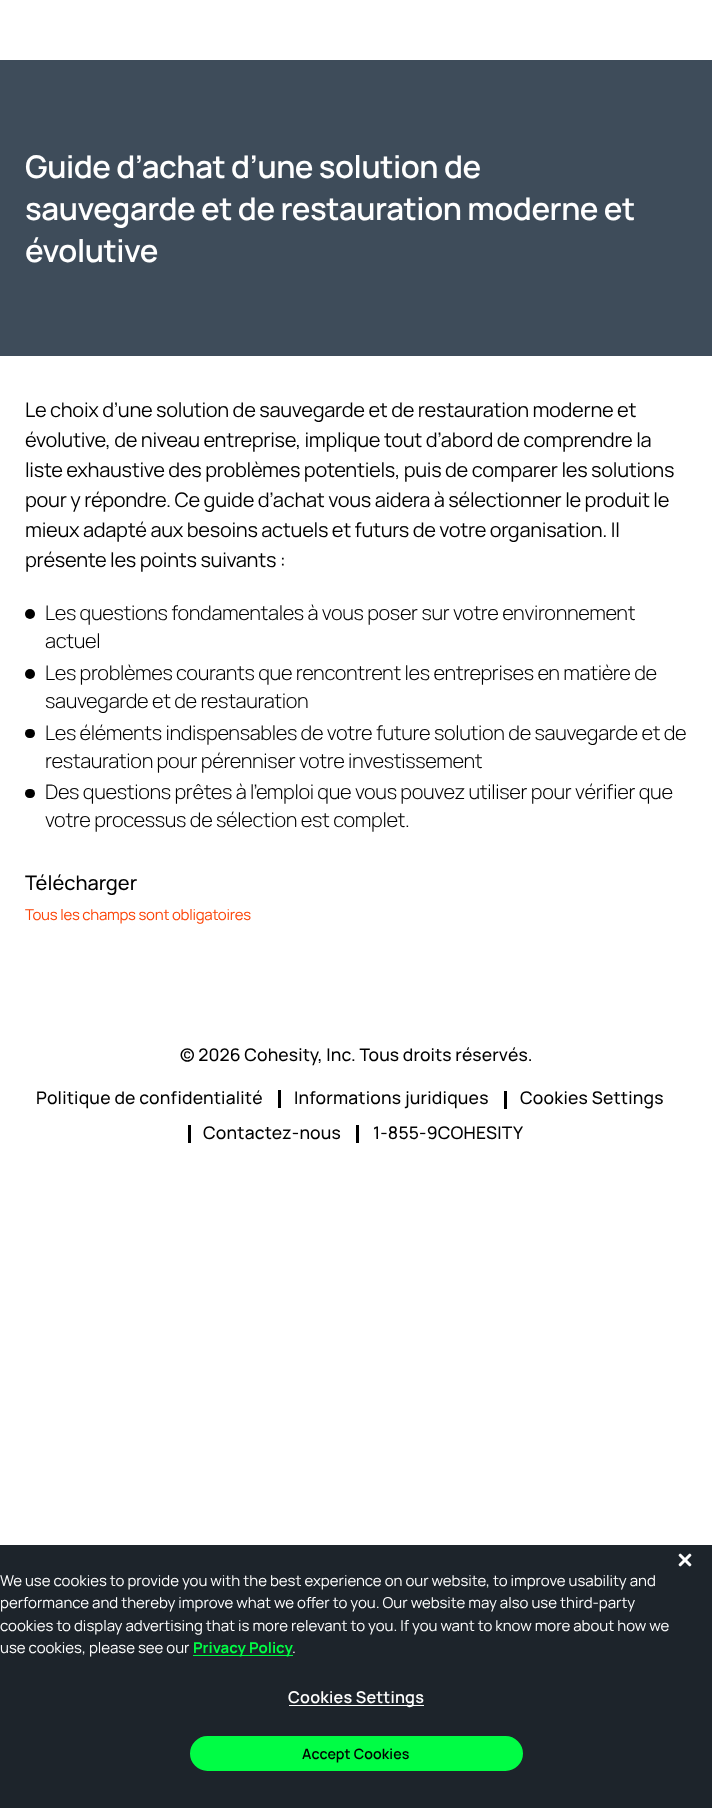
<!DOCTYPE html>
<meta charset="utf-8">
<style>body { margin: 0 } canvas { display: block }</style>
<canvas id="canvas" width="712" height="1808"></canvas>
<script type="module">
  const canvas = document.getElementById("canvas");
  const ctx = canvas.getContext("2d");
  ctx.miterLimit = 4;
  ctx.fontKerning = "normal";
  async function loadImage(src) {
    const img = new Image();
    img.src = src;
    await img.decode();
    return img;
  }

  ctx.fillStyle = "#ffffff";
  ctx.fillRect(0, 0, 712, 1808);
  ctx.fillStyle = "#3e4c5a";
  ctx.fillRect(0, 60, 712, 296);
  ctx.letterSpacing = "-0.45px";
  ctx.font = "600 31.25px Manrope";
  ctx.fillStyle = "#ffffff";
  ctx.fillText("Guide d’achat d’une solution de", 25, 178);
  ctx.fillText("sauvegarde et de restauration moderne et", 25, 220);
  ctx.fillText("évolutive", 25, 262);
  ctx.letterSpacing = "-0.3px";
  ctx.font = "20px Manrope";
  ctx.fillStyle = "#000000";
  ctx.fillText("Le choix d’une solution de sauvegarde et de restauration moderne et", 25, 417);
  ctx.fillText("évolutive, de niveau entreprise, implique tout d’abord de comprendre la", 25, 447);
  ctx.fillText("liste exhaustive des problèmes potentiels, puis de comparer les solutions", 25, 477);
  ctx.fillText("pour y répondre. Ce guide d’achat vous aidera à sélectionner le produit le", 25, 507);
  ctx.fillText("mieux adapté aux besoins actuels et futurs de votre organisation. Il", 25, 537);
  ctx.fillText("présente les points suivants :", 25, 567);
  ctx.beginPath();
  ctx.arc(30, 614, 5, 0, Math.PI * 2);
  ctx.fill();
  ctx.letterSpacing = "-0.35px";
  ctx.font = "300 20px Manrope";
  ctx.fillText("Les questions fondamentales à vous poser sur votre environnement", 45, 620);
  ctx.fillText("actuel", 45, 648);
  ctx.beginPath();
  ctx.arc(30, 674, 5, 0, Math.PI * 2);
  ctx.fill();
  ctx.fillText("Les problèmes courants que rencontrent les entreprises en matière de", 45, 680);
  ctx.fillText("sauvegarde et de restauration", 45, 708);
  ctx.beginPath();
  ctx.roundRect(25, 729, 10, 9, 4.5);
  ctx.fill();
  ctx.fillText("Les éléments indispensables de votre future solution de sauvegarde et de", 45, 740);
  ctx.fillText("restauration pour pérenniser votre investissement", 45, 768);
  ctx.beginPath();
  ctx.roundRect(25, 789, 10, 9, 4.5);
  ctx.fill();
  ctx.fillText("Des questions prêtes à l’emploi que vous pouvez utiliser pour vérifier que", 45, 799);
  ctx.fillText("votre processus de sélection est complet.", 45, 827);
  ctx.letterSpacing = "0px";
  ctx.font = "500 20px Manrope";
  ctx.fillText("Télécharger", 25, 890);
  ctx.letterSpacing = "-0.25px";
  ctx.font = "15px Manrope";
  ctx.fillStyle = "#fc4306";
  ctx.fillText("Tous les champs sont obligatoires", 25, 920);
  ctx.letterSpacing = "0.1px";
  ctx.font = "500 17.5px Manrope";
  ctx.fillStyle = "#000000";
  ctx.fillText("© 2026 Cohesity, Inc. Tous droits réservés.", 180, 1061);
  ctx.letterSpacing = "0.2px";
  ctx.fillText("Politique de confidentialité", 36, 1104);
  ctx.fillRect(278, 1090, 3, 18);
  ctx.fillText("Informations juridiques", 294, 1104);
  ctx.fillRect(504, 1091, 3, 18);
  ctx.fillText("Cookies Settings", 520, 1104);
  ctx.fillRect(188, 1125, 3, 18);
  ctx.fillText("Contactez-nous", 203, 1139);
  ctx.fillRect(356, 1125, 3, 18);
  ctx.fillText("1-855-9COHESITY", 373, 1139);
  ctx.fillStyle = "#1d242b";
  ctx.fillRect(0, 1545, 712, 263);
  ctx.drawImage(await loadImage("img1.png"), 678, 1553, 14, 14);
  ctx.letterSpacing = "0px";
  ctx.font = "15px Manrope";
  ctx.fillStyle = "#ffffff";
  ctx.fillText("We use cookies to provide you with the best experience on our website, to improve usability and", 0, 1586);
  ctx.fillText("performance and thereby improve what we offer to you. Our website may also use third-party", 0, 1608);
  ctx.fillText("cookies to display advertising that is more relevant to you. If you want to know more about how we", 0, 1631);
  ctx.fillText("use cookies, please see our", 0, 1653);
  ctx.fillStyle = "#00fd45";
  ctx.fillRect(193, 1655, 100, 1);
  ctx.font = "bold 15px Manrope";
  ctx.fillText("Privacy Policy", 193, 1653);
  ctx.font = "15px Manrope";
  ctx.fillStyle = "#ffffff";
  ctx.fillText(".", 292, 1653);
  ctx.fillRect(289, 1705, 135, 1);
  ctx.letterSpacing = "0.2px";
  ctx.font = "600 16.25px Manrope";
  ctx.fillText("Cookies Settings", 288, 1703);
  ctx.fillStyle = "#00fd45";
  ctx.beginPath();
  ctx.roundRect(191.5, 1737.5, 330, 32, 16);
  ctx.fill();
  ctx.strokeStyle = "#00fd45";
  ctx.lineWidth = 3;
  ctx.stroke();
  ctx.letterSpacing = "0.1px";
  ctx.font = "600 14.25px Manrope";
  ctx.fillStyle = "#000000";
  ctx.fillText("Accept Cookies", 302, 1759);
</script>
